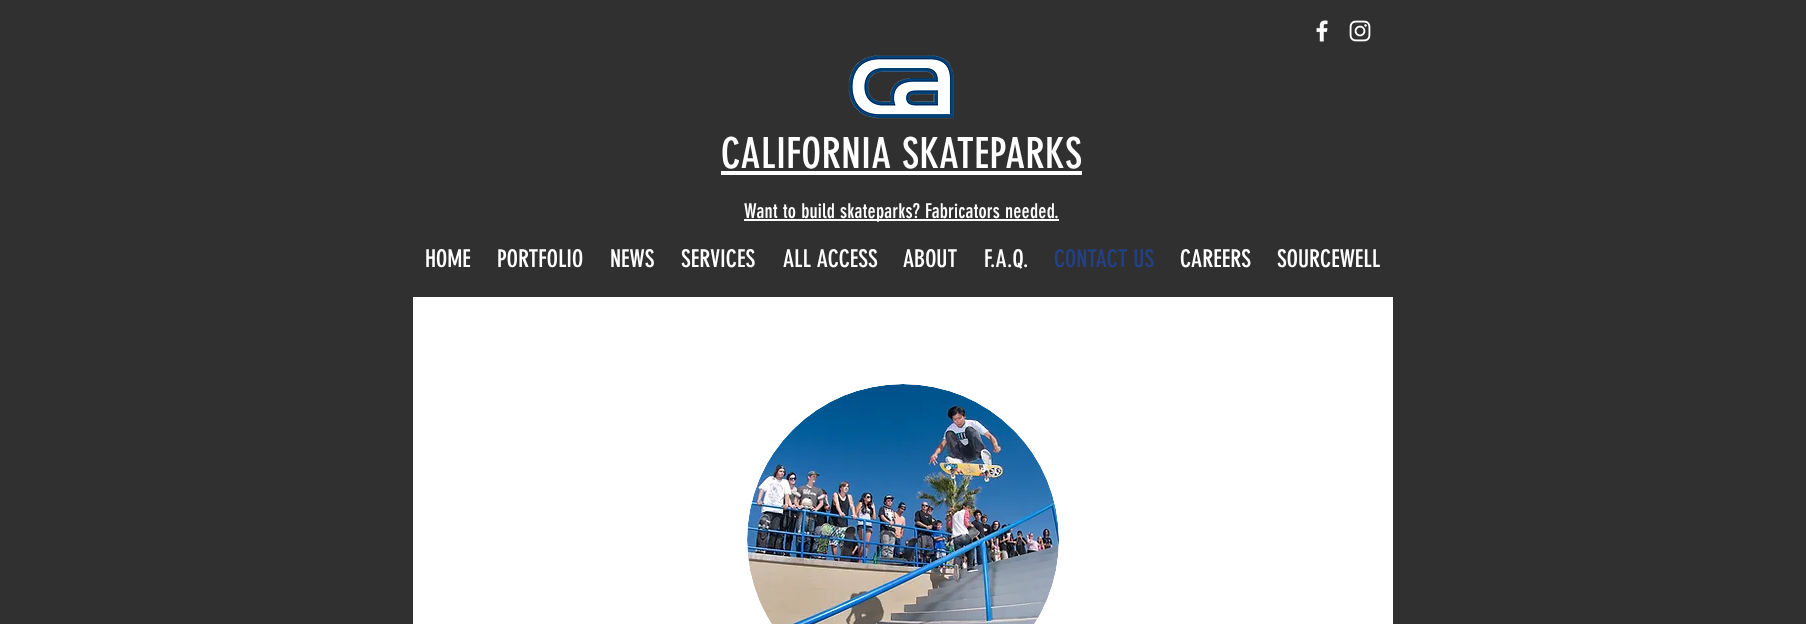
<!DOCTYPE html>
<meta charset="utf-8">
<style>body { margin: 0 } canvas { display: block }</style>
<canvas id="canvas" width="1806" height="624"></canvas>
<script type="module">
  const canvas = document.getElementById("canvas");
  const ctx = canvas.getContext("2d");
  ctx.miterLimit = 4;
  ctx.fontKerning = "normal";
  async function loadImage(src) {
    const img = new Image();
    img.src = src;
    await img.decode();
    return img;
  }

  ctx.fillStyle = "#303030";
  ctx.fillRect(0, 0, 1806, 624);
  ctx.drawImage(await loadImage("img1.png"), 1316, 20, 12, 22);
  ctx.drawImage(await loadImage("img2.png"), 1349, 20, 22, 22);
  ctx.drawImage(await loadImage("img3.png"), 848, 55, 106, 64);
  ctx.letterSpacing = "0.4px";
  ctx.font = "42px 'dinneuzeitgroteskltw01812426'";
  ctx.fillStyle = "#ffffff";
  ctx.fillText("CALIFORNIA SKATEPARKS", 721, 168);
  ctx.fillRect(721, 171, 361, 4);
  ctx.fillRect(744, 219, 315, 2);
  ctx.letterSpacing = "0.2px";
  ctx.font = "20px 'dinneuzeitgroteskltw01812426'";
  ctx.fillText("Want to build skateparks? Fabricators needed.", 744, 218);
  ctx.letterSpacing = "0px";
  ctx.font = "24px 'dinneuzeitgroteskltw01812426'";
  ctx.fillText("HOME", 425, 267);
  ctx.fillText("PORTFOLIO", 497, 267);
  ctx.fillText("NEWS", 610, 267);
  ctx.fillText("SERVICES", 681, 267);
  ctx.fillText("ALL ACCESS", 783, 267);
  ctx.fillText("ABOUT", 903, 267);
  ctx.fillText("F.A.Q.", 984, 267);
  ctx.fillStyle = "#244185";
  ctx.fillText("CONTACT US", 1054, 267);
  ctx.fillStyle = "#ffffff";
  ctx.fillText("CAREERS", 1180, 267);
  ctx.fillText("SOURCEWELL", 1277, 267);
  ctx.fillRect(413, 297, 980, 327);
  ctx.drawImage(await loadImage("img4.png"), 747, 384, 312, 240);
</script>
